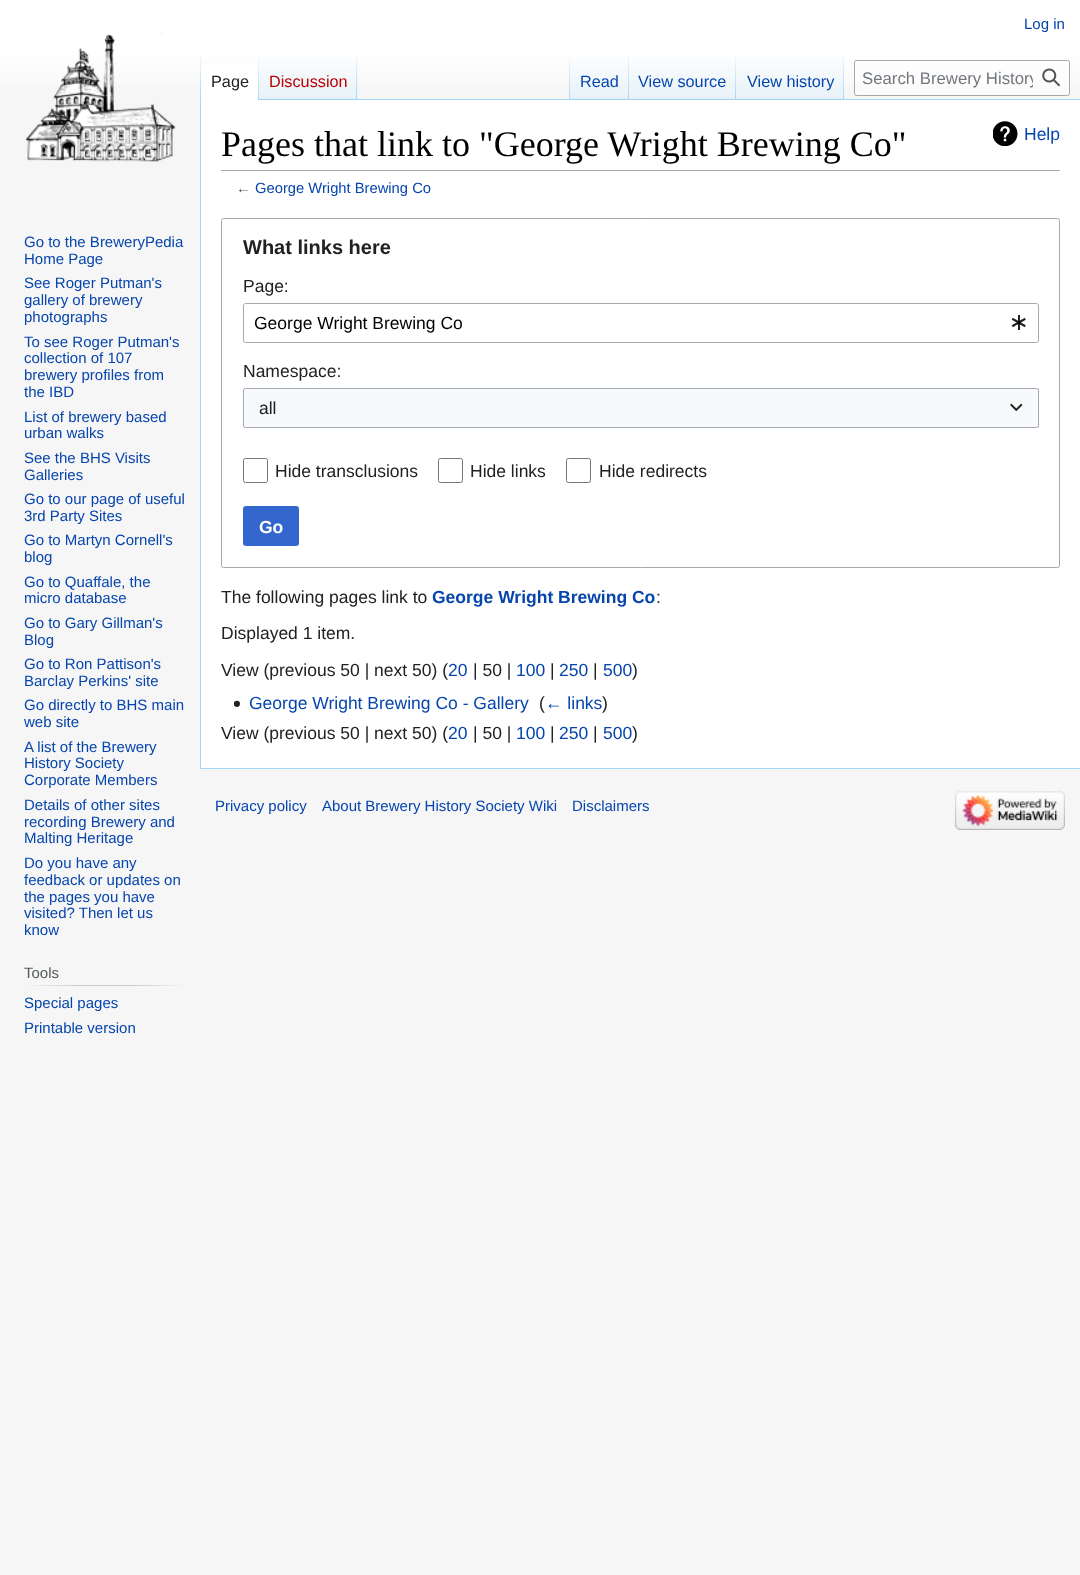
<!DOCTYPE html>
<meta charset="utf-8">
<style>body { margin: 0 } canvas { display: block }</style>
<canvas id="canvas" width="1080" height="1575"></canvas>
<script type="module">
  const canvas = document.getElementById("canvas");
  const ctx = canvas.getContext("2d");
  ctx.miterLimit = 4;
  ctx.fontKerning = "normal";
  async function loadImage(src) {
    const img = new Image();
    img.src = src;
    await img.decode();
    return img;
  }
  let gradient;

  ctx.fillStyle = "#f6f6f6";
  ctx.fillRect(0, 0, 1080, 1575);
  gradient = ctx.createLinearGradient(540, 0, 540, 100);
  gradient.addColorStop(0.5, "#ffffff");
  gradient.addColorStop(1, "#f6f6f6");
  ctx.fillStyle = gradient;
  ctx.fillRect(0, 0, 1080, 86);
  ctx.font = "15px Liberation Sans";
  ctx.fillStyle = "#0645ad";
  ctx.fillText("Log in", 1024, 29);
  ctx.fillStyle = "#a7d7f9";
  ctx.fillRect(200, 768, 880, 1);
  ctx.fillRect(200, 99, 1, 670);
  gradient = ctx.createLinearGradient(201, 50, 201, 100);
  gradient.addColorStop(0, "rgba(167, 215, 249, 0)");
  gradient.addColorStop(1, "#a7d7f9");
  ctx.fillStyle = gradient;
  ctx.fillRect(200, 50, 1, 50);
  ctx.fillStyle = "#ffffff";
  ctx.fillRect(201, 64, 57, 36);
  gradient = ctx.createLinearGradient(258, 50, 258, 100);
  gradient.addColorStop(0, "#ffffff");
  gradient.addColorStop(1, "#a7d7f9");
  ctx.fillStyle = gradient;
  ctx.fillRect(258, 50, 1, 50);
  ctx.font = "16.25px Liberation Sans";
  ctx.fillStyle = "#202122";
  ctx.fillText("Page", 211, 87);
  gradient = ctx.createLinearGradient(308, 100, 308, 50);
  gradient.addColorStop(0, "#77c1f6");
  gradient.addColorStop(0.03, "#e8f2f8");
  gradient.addColorStop(1, "#ffffff");
  ctx.fillStyle = gradient;
  ctx.fillRect(259, 57, 99, 43);
  gradient = ctx.createLinearGradient(357, 50, 357, 100);
  gradient.addColorStop(0, "rgba(167, 215, 249, 0)");
  gradient.addColorStop(1, "#a7d7f9");
  ctx.fillStyle = gradient;
  ctx.fillRect(356, 50, 1, 50);
  ctx.fillStyle = "#ba0000";
  ctx.fillText("Discussion", 269, 87);
  ctx.fillStyle = "#a7d7f9";
  ctx.fillRect(358, 99, 722, 1);
  gradient = ctx.createLinearGradient(569, 50, 569, 100);
  gradient.addColorStop(0, "rgba(167, 215, 249, 0)");
  gradient.addColorStop(1, "#a7d7f9");
  ctx.fillStyle = gradient;
  ctx.fillRect(569, 50, 1, 50);
  gradient = ctx.createLinearGradient(599, 100, 599, 50);
  gradient.addColorStop(0, "#77c1f6");
  gradient.addColorStop(0.03, "#e8f2f8");
  gradient.addColorStop(1, "#ffffff");
  ctx.fillStyle = gradient;
  ctx.fillRect(570, 57, 59, 43);
  gradient = ctx.createLinearGradient(628, 50, 628, 100);
  gradient.addColorStop(0, "rgba(167, 215, 249, 0)");
  gradient.addColorStop(1, "#a7d7f9");
  ctx.fillStyle = gradient;
  ctx.fillRect(628, 50, 1, 50);
  ctx.fillStyle = "#0645ad";
  ctx.fillText("Read", 580, 87);
  gradient = ctx.createLinearGradient(683, 100, 683, 50);
  gradient.addColorStop(0, "#77c1f6");
  gradient.addColorStop(0.03, "#e8f2f8");
  gradient.addColorStop(1, "#ffffff");
  ctx.fillStyle = gradient;
  ctx.fillRect(629, 57, 107, 43);
  gradient = ctx.createLinearGradient(736, 50, 736, 100);
  gradient.addColorStop(0, "rgba(167, 215, 249, 0)");
  gradient.addColorStop(1, "#a7d7f9");
  ctx.fillStyle = gradient;
  ctx.fillRect(735, 50, 1, 50);
  ctx.fillStyle = "#0645ad";
  ctx.fillText("View source", 638, 87);
  gradient = ctx.createLinearGradient(790, 100, 790, 50);
  gradient.addColorStop(0, "#77c1f6");
  gradient.addColorStop(0.03, "#e8f2f8");
  gradient.addColorStop(1, "#ffffff");
  ctx.fillStyle = gradient;
  ctx.fillRect(736, 57, 108, 43);
  gradient = ctx.createLinearGradient(843, 50, 843, 100);
  gradient.addColorStop(0, "rgba(167, 215, 249, 0)");
  gradient.addColorStop(1, "#a7d7f9");
  ctx.fillStyle = gradient;
  ctx.fillRect(843, 50, 1, 50);
  ctx.fillStyle = "#0645ad";
  ctx.fillText("View history", 747, 87);
  ctx.fillStyle = "rgba(255, 255, 255, 0.5)";
  ctx.beginPath();
  ctx.roundRect(854.5, 60.5, 215, 35, 2);
  ctx.fill();
  ctx.strokeStyle = "#a2a9b1";
  ctx.stroke();
  ctx.save();
  ctx.beginPath();
  ctx.rect(863, 69, 170, 19);
  ctx.clip();
  ctx.font = "16.75px Liberation Sans";
  ctx.fillStyle = "#72777d";
  ctx.fillText("Search Brewery History", 862, 84);
  ctx.restore();
  ctx.drawImage(await loadImage("img1.png"), 1042, 68, 19, 19);
  ctx.drawImage(await loadImage("img2.png"), 26, 31, 150, 131);
  ctx.font = "15px Liberation Sans";
  ctx.fillStyle = "#0645ad";
  ctx.fillText("Go to the BreweryPedia", 24, 247);
  ctx.fillText("Home Page", 24, 264);
  ctx.fillText("See Roger Putman's", 24, 288);
  ctx.fillText("gallery of brewery", 24, 305);
  ctx.fillText("photographs", 24, 322);
  ctx.fillText("To see Roger Putman's", 24, 347);
  ctx.fillText("collection of 107", 24, 363);
  ctx.fillText("brewery profiles from", 24, 380);
  ctx.fillText("the IBD", 24, 397);
  ctx.fillText("List of brewery based", 24, 422);
  ctx.fillText("urban walks", 24, 438);
  ctx.fillText("See the BHS Visits", 24, 463);
  ctx.fillText("Galleries", 24, 480);
  ctx.fillText("Go to our page of useful", 24, 504);
  ctx.fillText("3rd Party Sites", 24, 521);
  ctx.fillText("Go to Martyn Cornell's", 24, 545);
  ctx.fillText("blog", 24, 562);
  ctx.fillText("Go to Quaffale, the", 24, 587);
  ctx.fillText("micro database", 24, 603);
  ctx.fillText("Go to Gary Gillman's", 24, 628);
  ctx.fillText("Blog", 24, 645);
  ctx.fillText("Go to Ron Pattison's", 24, 669);
  ctx.fillText("Barclay Perkins' site", 24, 686);
  ctx.fillText("Go directly to BHS main", 24, 710);
  ctx.fillText("web site", 24, 727);
  ctx.fillText("A list of the Brewery", 24, 752);
  ctx.fillText("History Society", 24, 768);
  ctx.fillText("Corporate Members", 24, 785);
  ctx.fillText("Details of other sites", 24, 810);
  ctx.fillText("recording Brewery and", 24, 827);
  ctx.fillText("Malting Heritage", 24, 843);
  ctx.fillText("Do you have any", 24, 868);
  ctx.fillText("feedback or updates on", 24, 885);
  ctx.fillText("the pages you have", 24, 902);
  ctx.fillText("visited? Then let us", 24, 918);
  ctx.fillText("know", 24, 935);
  gradient = ctx.createLinearGradient(24, 986, 188, 986);
  gradient.addColorStop(0, "#f6f6f6");
  gradient.addColorStop(0.33, "#c8ccd1");
  gradient.addColorStop(0.66, "#c8ccd1");
  gradient.addColorStop(1, "#f6f6f6");
  ctx.fillStyle = gradient;
  ctx.fillRect(24, 985, 164, 1);
  ctx.fillStyle = "#54595d";
  ctx.fillText("Tools", 24, 978);
  ctx.fillStyle = "#0645ad";
  ctx.fillText("Special pages", 24, 1008);
  ctx.fillText("Printable version", 24, 1033);
  ctx.fillStyle = "#ffffff";
  ctx.fillRect(201, 100, 879, 668);
  ctx.fillStyle = "#a2a9b1";
  ctx.fillRect(221, 170, 839, 1);
  ctx.font = "36px Liberation Serif";
  ctx.fillStyle = "#000000";
  ctx.fillText("Pages that link to \"George Wright Brewing Co\"", 221, 156);
  ctx.drawImage(await loadImage("img3.png"), 993, 121, 25, 25);
  ctx.font = "17.5px Liberation Sans";
  ctx.fillStyle = "#0645ad";
  ctx.fillText("Help", 1024, 140);
  ctx.font = "14.75px Liberation Sans";
  ctx.fillStyle = "#54595d";
  ctx.fillText("←", 236, 193);
  ctx.fillStyle = "#0645ad";
  ctx.fillText("George Wright Brewing Co", 255, 193);
  ctx.beginPath();
  ctx.roundRect(221.5, 218.5, 838, 349, 2);
  ctx.stroke();
  ctx.font = "bold 20px Liberation Sans";
  ctx.fillStyle = "#202122";
  ctx.fillText("What links here", 243, 254);
  ctx.font = "17.5px Liberation Sans";
  ctx.fillText("Page:", 243, 292);
  ctx.beginPath();
  ctx.roundRect(243.5, 303.5, 795, 39, 2);
  ctx.stroke();
  ctx.fillStyle = "#000000";
  ctx.fillText("George Wright Brewing Co", 254, 329);
  ctx.drawImage(await loadImage("img4.png"), 1011, 315, 15, 15);
  ctx.fillStyle = "#202122";
  ctx.fillText("Namespace:", 243, 377);
  ctx.fillStyle = "#f8f9fa";
  ctx.fillRect(243, 388, 796, 40);
  ctx.beginPath();
  ctx.roundRect(243.5, 388.5, 795, 39, 2);
  ctx.stroke();
  ctx.fillStyle = "#202122";
  ctx.fillText("all", 259, 414);
  ctx.drawImage(await loadImage("img5.png"), 1010, 403, 13, 9);
  ctx.beginPath();
  ctx.roundRect(243.5, 458.5, 24, 24, 2);
  ctx.strokeStyle = "#72777d";
  ctx.stroke();
  ctx.fillText("Hide transclusions", 275, 477);
  ctx.beginPath();
  ctx.roundRect(438.5, 458.5, 24, 24, 2);
  ctx.stroke();
  ctx.fillText("Hide links", 470, 477);
  ctx.beginPath();
  ctx.roundRect(566.5, 458.5, 24, 24, 2);
  ctx.stroke();
  ctx.fillText("Hide redirects", 599, 477);
  ctx.fillStyle = "#3366cc";
  ctx.beginPath();
  ctx.roundRect(243.5, 506.5, 55, 39, 2);
  ctx.fill();
  ctx.strokeStyle = "#3366cc";
  ctx.stroke();
  ctx.font = "bold 17.5px Liberation Sans";
  ctx.fillStyle = "#ffffff";
  ctx.fillText("Go", 259, 533);
  ctx.font = "17.5px Liberation Sans";
  ctx.fillStyle = "#202122";
  ctx.fillText("The following pages link to", 221, 603);
  ctx.font = "bold 17.5px Liberation Sans";
  ctx.fillStyle = "#0645ad";
  ctx.fillText("George Wright Brewing Co", 432, 603);
  ctx.font = "17.5px Liberation Sans";
  ctx.fillStyle = "#202122";
  ctx.fillText(":", 656, 603);
  ctx.fillText("Displayed 1 item.", 221, 639);
  ctx.fillText("View (previous 50 | next 50) (", 221, 676);
  ctx.fillStyle = "#0645ad";
  ctx.fillText("20", 448, 676);
  ctx.fillStyle = "#202122";
  ctx.fillText("| 50 |", 473, 676);
  ctx.fillStyle = "#0645ad";
  ctx.fillText("100", 516, 676);
  ctx.fillStyle = "#202122";
  ctx.fillText("|", 550, 676);
  ctx.fillStyle = "#0645ad";
  ctx.fillText("250", 559, 676);
  ctx.fillStyle = "#202122";
  ctx.fillText("|", 593, 676);
  ctx.fillStyle = "#0645ad";
  ctx.fillText("500", 603, 676);
  ctx.fillStyle = "#202122";
  ctx.fillText(")", 632, 676);
  ctx.drawImage(await loadImage("img6.png"), 234, 700, 6, 7);
  ctx.fillStyle = "#0645ad";
  ctx.fillText("George Wright Brewing Co - Gallery", 249, 709);
  ctx.fillStyle = "#202122";
  ctx.fillText("(", 539, 709);
  ctx.fillStyle = "#0645ad";
  ctx.fillText("← links", 545, 709);
  ctx.fillStyle = "#202122";
  ctx.fillText(")", 602, 709);
  ctx.fillText("View (previous 50 | next 50) (", 221, 739);
  ctx.fillStyle = "#0645ad";
  ctx.fillText("20", 448, 739);
  ctx.fillStyle = "#202122";
  ctx.fillText("| 50 |", 473, 739);
  ctx.fillStyle = "#0645ad";
  ctx.fillText("100", 516, 739);
  ctx.fillStyle = "#202122";
  ctx.fillText("|", 550, 739);
  ctx.fillStyle = "#0645ad";
  ctx.fillText("250", 559, 739);
  ctx.fillStyle = "#202122";
  ctx.fillText("|", 593, 739);
  ctx.fillStyle = "#0645ad";
  ctx.fillText("500", 603, 739);
  ctx.fillStyle = "#202122";
  ctx.fillText(")", 632, 739);
  ctx.font = "15px Liberation Sans";
  ctx.fillStyle = "#0645ad";
  ctx.fillText("Privacy policy", 215, 811);
  ctx.fillText("About Brewery History Society Wiki", 322, 811);
  ctx.fillText("Disclaimers", 572, 811);
  ctx.drawImage(await loadImage("img7.png"), 955, 791, 110, 39);
</script>
